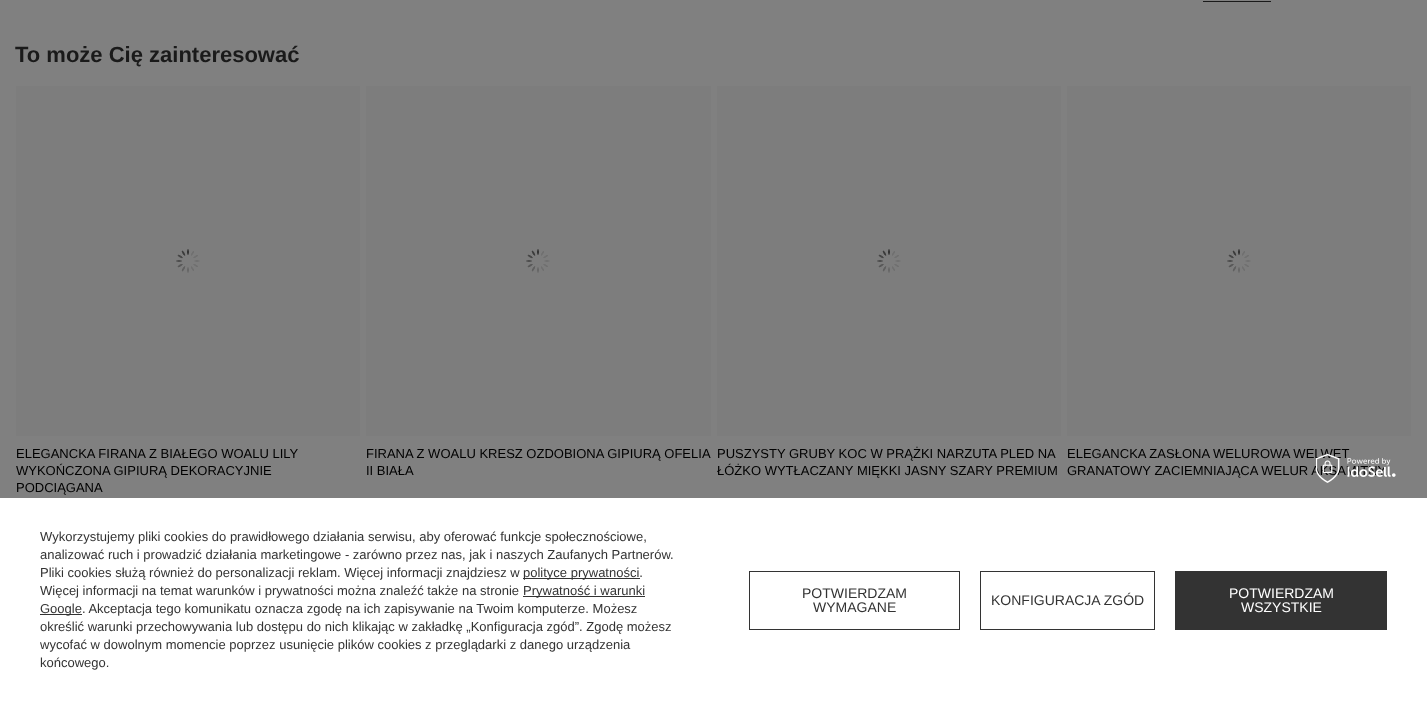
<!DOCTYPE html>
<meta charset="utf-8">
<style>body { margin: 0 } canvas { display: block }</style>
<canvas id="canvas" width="1427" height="702"></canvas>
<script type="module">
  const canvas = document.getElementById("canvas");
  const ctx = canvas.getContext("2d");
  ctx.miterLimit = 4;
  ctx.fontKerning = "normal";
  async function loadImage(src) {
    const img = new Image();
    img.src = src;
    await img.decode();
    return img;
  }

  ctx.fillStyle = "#808080";
  ctx.fillRect(0, 0, 1427, 702);
  ctx.fillStyle = "#1a1a1a";
  ctx.fillRect(1203, 1, 68, 1);
  ctx.font = "bold 22px Liberation Sans";
  ctx.fillText("To może Cię zainteresować", 15, 62);
  ctx.fillStyle = "#7d7d7d";
  ctx.fillRect(16, 86, 344, 350);
  ctx.drawImage(await loadImage("img1.png"), 176, 249, 24, 24);
  ctx.font = "13px Liberation Sans";
  ctx.fillStyle = "#000000";
  ctx.fillText("ELEGANCKA FIRANA Z BIAŁEGO WOALU LILY", 16, 458);
  ctx.fillText("WYKOŃCZONA GIPIURĄ DEKORACYJNIE", 16, 475);
  ctx.fillText("PODCIĄGANA", 16, 492);
  ctx.fillStyle = "#7d7d7d";
  ctx.fillRect(366, 86, 345, 350);
  ctx.drawImage(await loadImage("img1.png"), 526, 249, 24, 24);
  ctx.fillStyle = "#000000";
  ctx.fillText("FIRANA Z WOALU KRESZ OZDOBIONA GIPIURĄ OFELIA", 366, 458);
  ctx.fillText("II BIAŁA", 366, 475);
  ctx.fillStyle = "#7d7d7d";
  ctx.fillRect(717, 86, 344, 350);
  ctx.drawImage(await loadImage("img1.png"), 877, 249, 24, 24);
  ctx.fillStyle = "#000000";
  ctx.fillText("PUSZYSTY GRUBY KOC W PRĄŻKI NARZUTA PLED NA", 717, 458);
  ctx.fillText("ŁÓŻKO WYTŁACZANY MIĘKKI JASNY SZARY PREMIUM", 717, 475);
  ctx.fillStyle = "#7d7d7d";
  ctx.fillRect(1067, 86, 344, 350);
  ctx.drawImage(await loadImage("img1.png"), 1227, 249, 24, 24);
  ctx.fillStyle = "#000000";
  ctx.fillText("ELEGANCKA ZASŁONA WELUROWA WELWET", 1067, 458);
  ctx.fillText("GRANATOWY ZACIEMNIAJĄCA WELUR AKSAMITNY", 1067, 475);
  ctx.fillStyle = "#ffffff";
  ctx.fillRect(0, 498, 1427, 204);
  ctx.drawImage(await loadImage("img2.png"), 1316, 454, 80, 29);
  ctx.fillStyle = "#333333";
  ctx.fillText("Wykorzystujemy pliki cookies do prawidłowego działania serwisu, aby oferować funkcje społecznościowe,", 40, 541);
  ctx.fillText("analizować ruch i prowadzić działania marketingowe - zarówno przez nas, jak i naszych Zaufanych Partnerów.", 40, 559);
  ctx.fillText("Pliki cookies służą również do personalizacji reklam. Więcej informacji znajdziesz w", 40, 577);
  ctx.fillRect(523, 578, 117, 1);
  ctx.fillText("polityce prywatności.", 523, 577);
  ctx.fillText("Więcej informacji na temat warunków i prywatności można znaleźć także na stronie", 40, 595);
  ctx.fillRect(523, 596, 122, 1);
  ctx.fillText("Prywatność i warunki", 523, 595);
  ctx.fillRect(40, 614, 42, 1);
  ctx.fillText("Google. Akceptacja tego komunikatu oznacza zgodę na ich zapisywanie na Twoim komputerze. Możesz", 40, 613);
  ctx.fillText("określić warunki przechowywania lub dostępu do nich klikając w zakładkę „Konfiguracja zgód”. Zgodę możesz", 40, 631);
  ctx.fillText("wycofać w dowolnym momencie poprzez usunięcie plików cookies z przeglądarki z danego urządzenia", 40, 649);
  ctx.fillText("końcowego.", 40, 667);
  ctx.strokeStyle = "#333333";
  ctx.strokeRect(749.5, 571.5, 210, 58);
  ctx.font = "14px Liberation Sans";
  ctx.fillText("POTWIERDZAM", 802, 598);
  ctx.fillText("WYMAGANE", 813, 612);
  ctx.strokeRect(980.5, 571.5, 174, 58);
  ctx.fillText("KONFIGURACJA ZGÓD", 991, 605);
  ctx.fillRect(1175, 571, 212, 59);
  ctx.fillStyle = "#ffffff";
  ctx.fillText("POTWIERDZAM", 1229, 598);
  ctx.fillText("WSZYSTKIE", 1241, 612);
</script>
